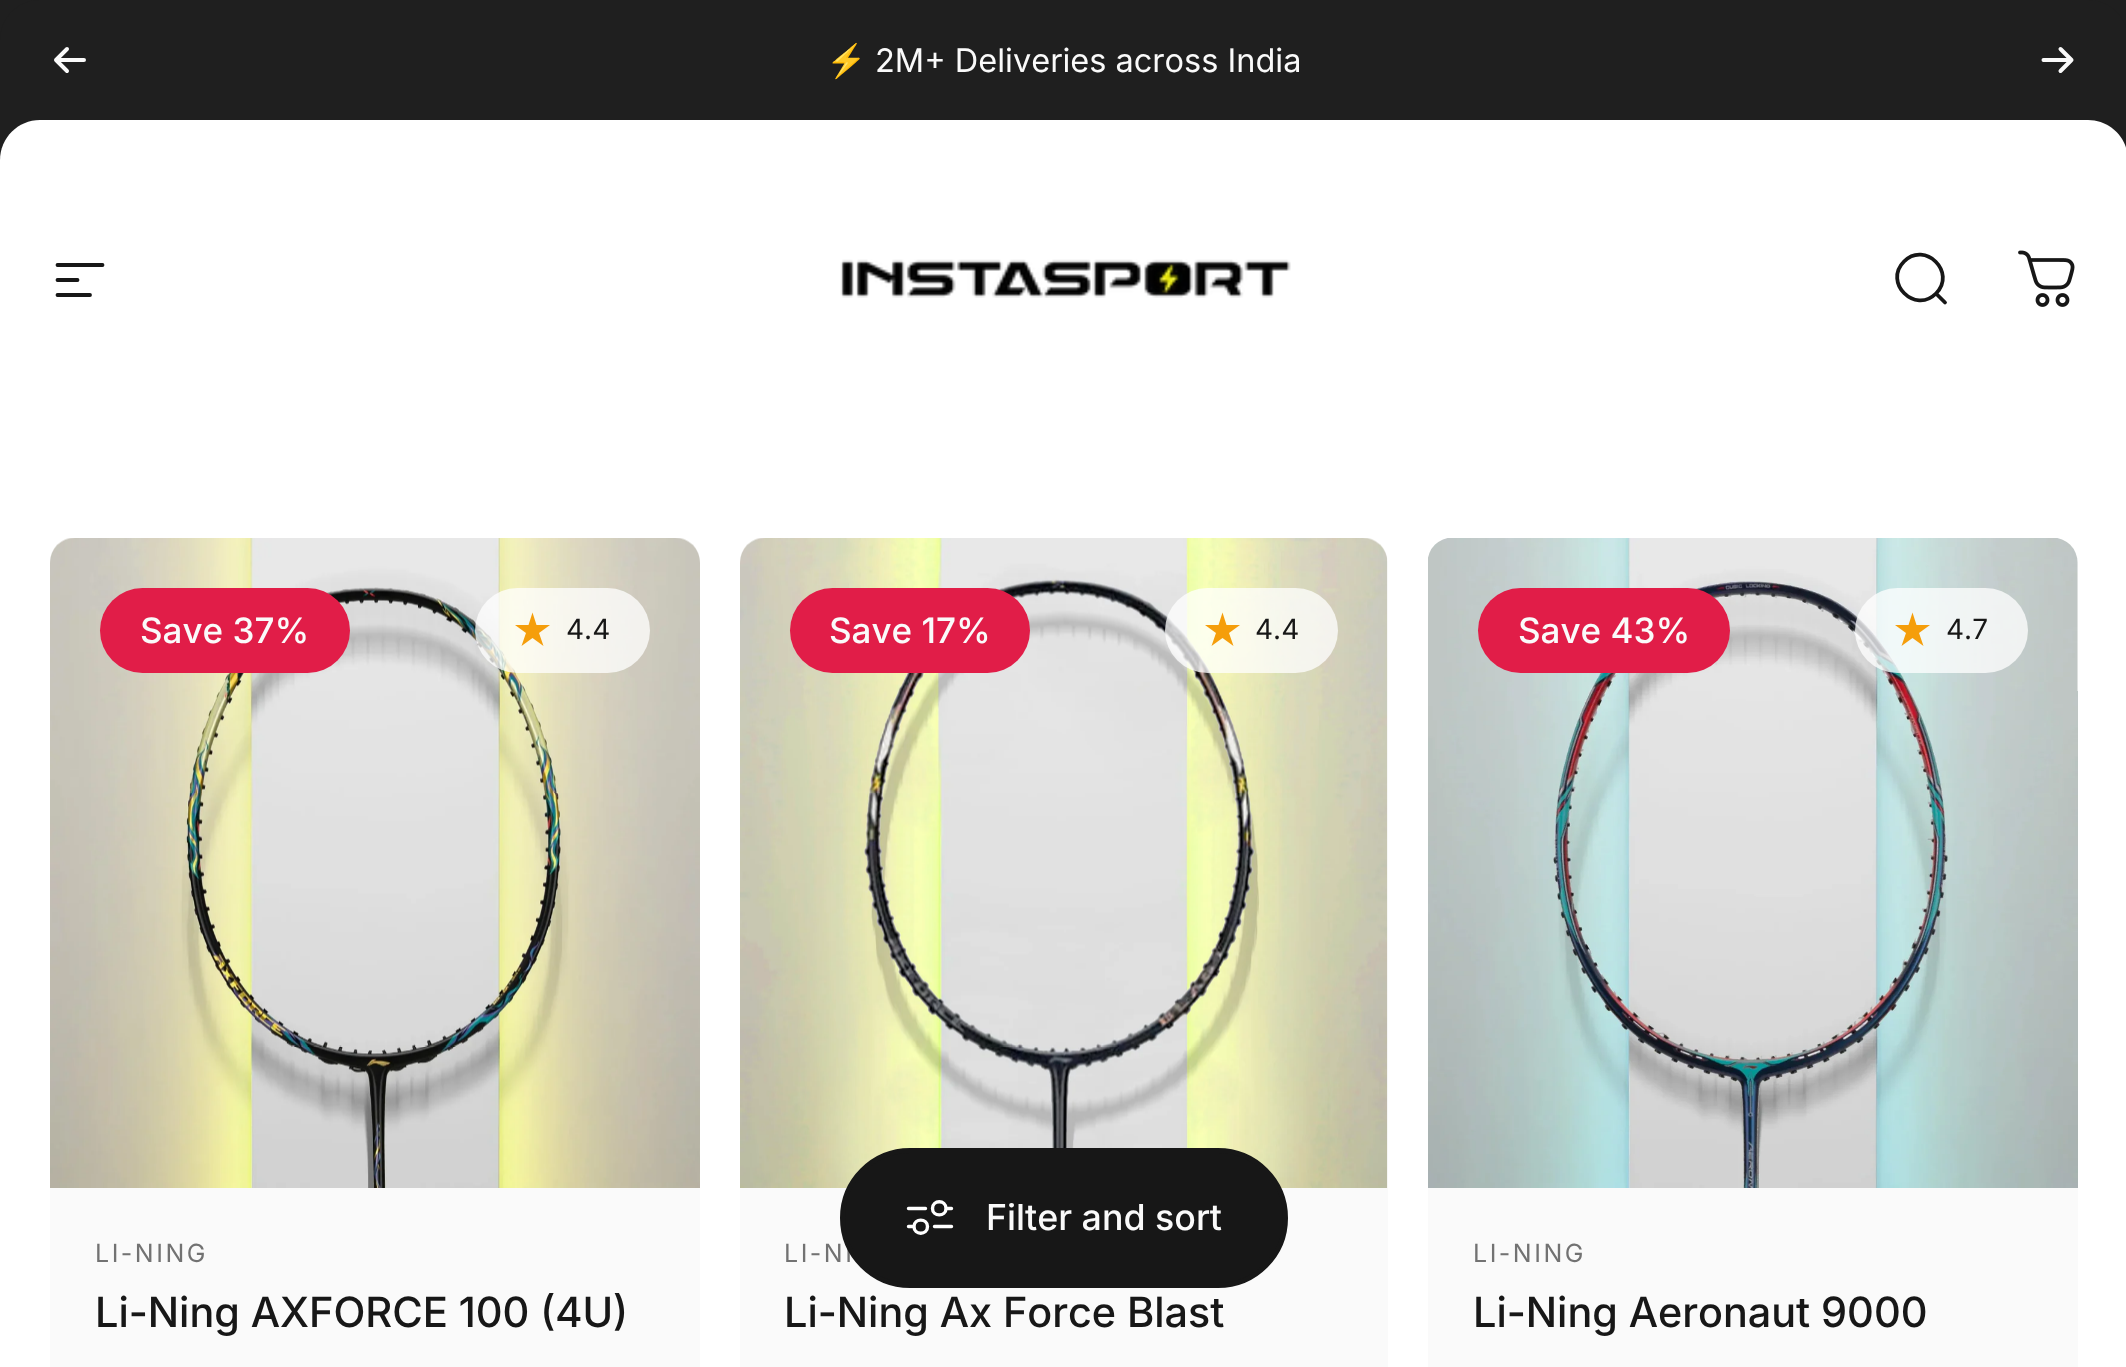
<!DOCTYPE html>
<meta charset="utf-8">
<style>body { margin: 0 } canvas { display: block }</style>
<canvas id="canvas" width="2126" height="1367"></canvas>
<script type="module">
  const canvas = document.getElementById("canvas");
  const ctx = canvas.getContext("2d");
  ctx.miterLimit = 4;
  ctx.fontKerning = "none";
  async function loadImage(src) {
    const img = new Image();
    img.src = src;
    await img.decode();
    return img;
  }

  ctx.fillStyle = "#ffffff";
  ctx.fillRect(0, 0, 2126, 1367);
  ctx.fillStyle = "#1f1f1f";
  ctx.fillRect(0, 0, 2126, 40);
  ctx.beginPath();
  ctx.moveTo(40, 0);
  ctx.lineTo(2088, 0);
  ctx.bezierCurveTo(2110, 0, 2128, 18, 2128, 40);
  ctx.lineTo(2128, 160);
  ctx.lineTo(0, 160);
  ctx.lineTo(0, 40);
  ctx.bezierCurveTo(0, 18, 18, 0, 40, 0);
  ctx.closePath();
  ctx.fill();
  ctx.beginPath();
  ctx.moveTo(67, 49);
  ctx.lineTo(56, 60);
  ctx.moveTo(56, 60);
  ctx.lineTo(67, 71);
  ctx.moveTo(56, 60);
  ctx.lineTo(84, 60);
  ctx.strokeStyle = "#fafafa";
  ctx.lineWidth = 4;
  ctx.lineCap = "round";
  ctx.lineJoin = "round";
  ctx.stroke();
  ctx.font = "32.5px Noto Color Emoji";
  ctx.fillStyle = "#fafafa";
  ctx.fillText("⚡", 826, 72);
  ctx.font = "32.5px Inter";
  ctx.fillText("2M+ Deliveries across India", 875, 72);
  ctx.beginPath();
  ctx.moveTo(2043.5, 60);
  ctx.lineTo(2071.5, 60);
  ctx.moveTo(2071.5, 60);
  ctx.lineTo(2060.5, 49);
  ctx.moveTo(2071.5, 60);
  ctx.lineTo(2060.5, 71);
  ctx.stroke();
  ctx.fillStyle = "#ffffff";
  ctx.beginPath();
  ctx.moveTo(40, 120);
  ctx.lineTo(2088, 120);
  ctx.bezierCurveTo(2110, 120, 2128, 138, 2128, 160);
  ctx.lineTo(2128, 438);
  ctx.lineTo(0, 438);
  ctx.lineTo(0, 160);
  ctx.bezierCurveTo(0, 138, 18, 120, 40, 120);
  ctx.closePath();
  ctx.fill();
  ctx.beginPath();
  ctx.moveTo(57.5, 265);
  ctx.lineTo(102.5, 265);
  ctx.moveTo(57.5, 280);
  ctx.lineTo(77.5, 280);
  ctx.moveTo(57.5, 295);
  ctx.lineTo(90, 295);
  ctx.strokeStyle = "#171717";
  ctx.lineWidth = 3.8;
  ctx.lineJoin = "miter";
  ctx.stroke();
  ctx.drawImage(await loadImage("img1.png"), 840, 259, 451, 39);
  ctx.beginPath();
  ctx.moveTo(1945, 302.5);
  ctx.lineTo(1936, 293.5);
  ctx.moveTo(1936, 293.5);
  ctx.bezierCurveTo(1957, 272.5, 1925, 240.5, 1904, 261.5);
  ctx.bezierCurveTo(1883, 282.5, 1915, 314.5, 1936, 293.5);
  ctx.closePath();
  ctx.stroke();
  ctx.drawImage(await loadImage("img2.png"), 2018, 250, 57, 57);
  ctx.fillStyle = "#fafafa";
  ctx.beginPath();
  ctx.roundRect(50, 538, 650, 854, 25);
  ctx.fill();
  ctx.drawImage(await loadImage("img3.png"), 50, 538, 650, 650);
  ctx.fillStyle = "#e11d48";
  ctx.beginPath();
  ctx.roundRect(100, 588, 250, 85, 42.5);
  ctx.fill();
  ctx.font = "500 35px 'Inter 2'";
  ctx.fillStyle = "#fafafa";
  ctx.fillText("Save 37%", 140, 643);
  ctx.fillStyle = "rgba(255, 255, 255, 0.75)";
  ctx.beginPath();
  ctx.roundRect(475, 588, 175, 85, 42.5);
  ctx.fill();
  ctx.fillStyle = "#f59e0b";
  ctx.beginPath();
  ctx.moveTo(532.5, 612.5);
  ctx.lineTo(536.5, 625);
  ctx.lineTo(550, 625);
  ctx.lineTo(539, 633);
  ctx.lineTo(543.5, 646);
  ctx.lineTo(532.5, 638);
  ctx.lineTo(521.5, 646);
  ctx.lineTo(526, 633);
  ctx.lineTo(515, 625);
  ctx.lineTo(528.5, 625);
  ctx.closePath();
  ctx.fill();
  ctx.font = "28px Inter";
  ctx.fillStyle = "#171717";
  ctx.fillText("4.4", 566, 639);
  ctx.letterSpacing = "2.5px";
  ctx.font = "25px Inter";
  ctx.fillStyle = "#727272";
  ctx.fillText("LI-NING", 95, 1262);
  ctx.letterSpacing = "0px";
  ctx.font = "500 41.7px Inter";
  ctx.fillStyle = "#171717";
  ctx.fillText("Li-Ning AXFORCE 100 (4U)", 95, 1327);
  ctx.fillStyle = "#fafafa";
  ctx.beginPath();
  ctx.roundRect(740, 538, 648, 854, 25);
  ctx.fill();
  ctx.drawImage(await loadImage("img4.png"), 740, 538, 648, 650);
  ctx.fillStyle = "#e11d48";
  ctx.beginPath();
  ctx.roundRect(790, 588, 240, 85, 42.5);
  ctx.fill();
  ctx.font = "500 35px 'Inter 2'";
  ctx.fillStyle = "#fafafa";
  ctx.fillText("Save 17%", 829, 643);
  ctx.fillStyle = "rgba(255, 255, 255, 0.75)";
  ctx.beginPath();
  ctx.roundRect(1165, 588, 173, 85, 42.5);
  ctx.fill();
  ctx.fillStyle = "#f59e0b";
  ctx.beginPath();
  ctx.moveTo(1222.5, 612.5);
  ctx.lineTo(1226.5, 625);
  ctx.lineTo(1240, 625);
  ctx.lineTo(1229, 633);
  ctx.lineTo(1233.5, 646);
  ctx.lineTo(1222.5, 638);
  ctx.lineTo(1211.5, 646);
  ctx.lineTo(1216, 633);
  ctx.lineTo(1205, 625);
  ctx.lineTo(1218.5, 625);
  ctx.closePath();
  ctx.fill();
  ctx.font = "28px Inter";
  ctx.fillStyle = "#171717";
  ctx.fillText("4.4", 1255, 639);
  ctx.letterSpacing = "2.5px";
  ctx.font = "25px Inter";
  ctx.fillStyle = "#727272";
  ctx.fillText("LI-NI", 784, 1262);
  ctx.letterSpacing = "0px";
  ctx.font = "500 41.7px Inter";
  ctx.fillStyle = "#171717";
  ctx.fillText("Li-Ning Ax Force Blast", 784, 1327);
  ctx.fillStyle = "#fafafa";
  ctx.beginPath();
  ctx.roundRect(1428, 538, 650, 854, 25);
  ctx.fill();
  ctx.drawImage(await loadImage("img5.png"), 1428, 538, 650, 650);
  ctx.fillStyle = "#e11d48";
  ctx.beginPath();
  ctx.roundRect(1478, 588, 252, 85, 42.5);
  ctx.fill();
  ctx.font = "500 35px 'Inter 2'";
  ctx.fillStyle = "#fafafa";
  ctx.fillText("Save 43%", 1518, 643);
  ctx.fillStyle = "rgba(255, 255, 255, 0.75)";
  ctx.beginPath();
  ctx.roundRect(1855, 588, 173, 85, 42.5);
  ctx.fill();
  ctx.fillStyle = "#f59e0b";
  ctx.beginPath();
  ctx.moveTo(1912.5, 612.5);
  ctx.lineTo(1916.5, 625);
  ctx.lineTo(1930, 625);
  ctx.lineTo(1919, 633);
  ctx.lineTo(1923.5, 646);
  ctx.lineTo(1912.5, 638);
  ctx.lineTo(1901.5, 646);
  ctx.lineTo(1906, 633);
  ctx.lineTo(1895, 625);
  ctx.lineTo(1908.5, 625);
  ctx.closePath();
  ctx.fill();
  ctx.font = "28px Inter";
  ctx.fillStyle = "#171717";
  ctx.fillText("4.7", 1946, 639);
  ctx.letterSpacing = "2.5px";
  ctx.font = "25px Inter";
  ctx.fillStyle = "#727272";
  ctx.fillText("LI-NING", 1473, 1262);
  ctx.letterSpacing = "0px";
  ctx.font = "500 41.7px Inter";
  ctx.fillStyle = "#171717";
  ctx.fillText("Li-Ning Aeronaut 9000", 1473, 1327);
  ctx.beginPath();
  ctx.roundRect(842.5, 1150.5, 443, 135, 67.5);
  ctx.fill();
  ctx.lineWidth = 5;
  ctx.stroke();
  ctx.beginPath();
  ctx.moveTo(908.5, 1226.5);
  ctx.lineTo(914, 1226.5);
  ctx.moveTo(914, 1226.5);
  ctx.bezierCurveTo(914, 1235.5, 927.5, 1235.5, 927.5, 1226.5);
  ctx.bezierCurveTo(927.5, 1218, 914, 1218, 914, 1226.5);
  ctx.closePath();
  ctx.moveTo(946, 1208.5);
  ctx.lineTo(951.5, 1208.5);
  ctx.moveTo(946, 1208.5);
  ctx.bezierCurveTo(946, 1217, 932.5, 1217, 932.5, 1208.5);
  ctx.bezierCurveTo(932.5, 1199.5, 946, 1199.5, 946, 1208.5);
  ctx.closePath();
  ctx.moveTo(934.5, 1226.5);
  ctx.lineTo(951.5, 1226.5);
  ctx.moveTo(908.5, 1208.5);
  ctx.lineTo(925.5, 1208.5);
  ctx.strokeStyle = "#ffffff";
  ctx.lineWidth = 3.4;
  ctx.stroke();
  ctx.font = "500 35.75px 'Inter 2'";
  ctx.fillStyle = "#fafafa";
  ctx.fillText("Filter and sort", 986, 1230);
</script>
